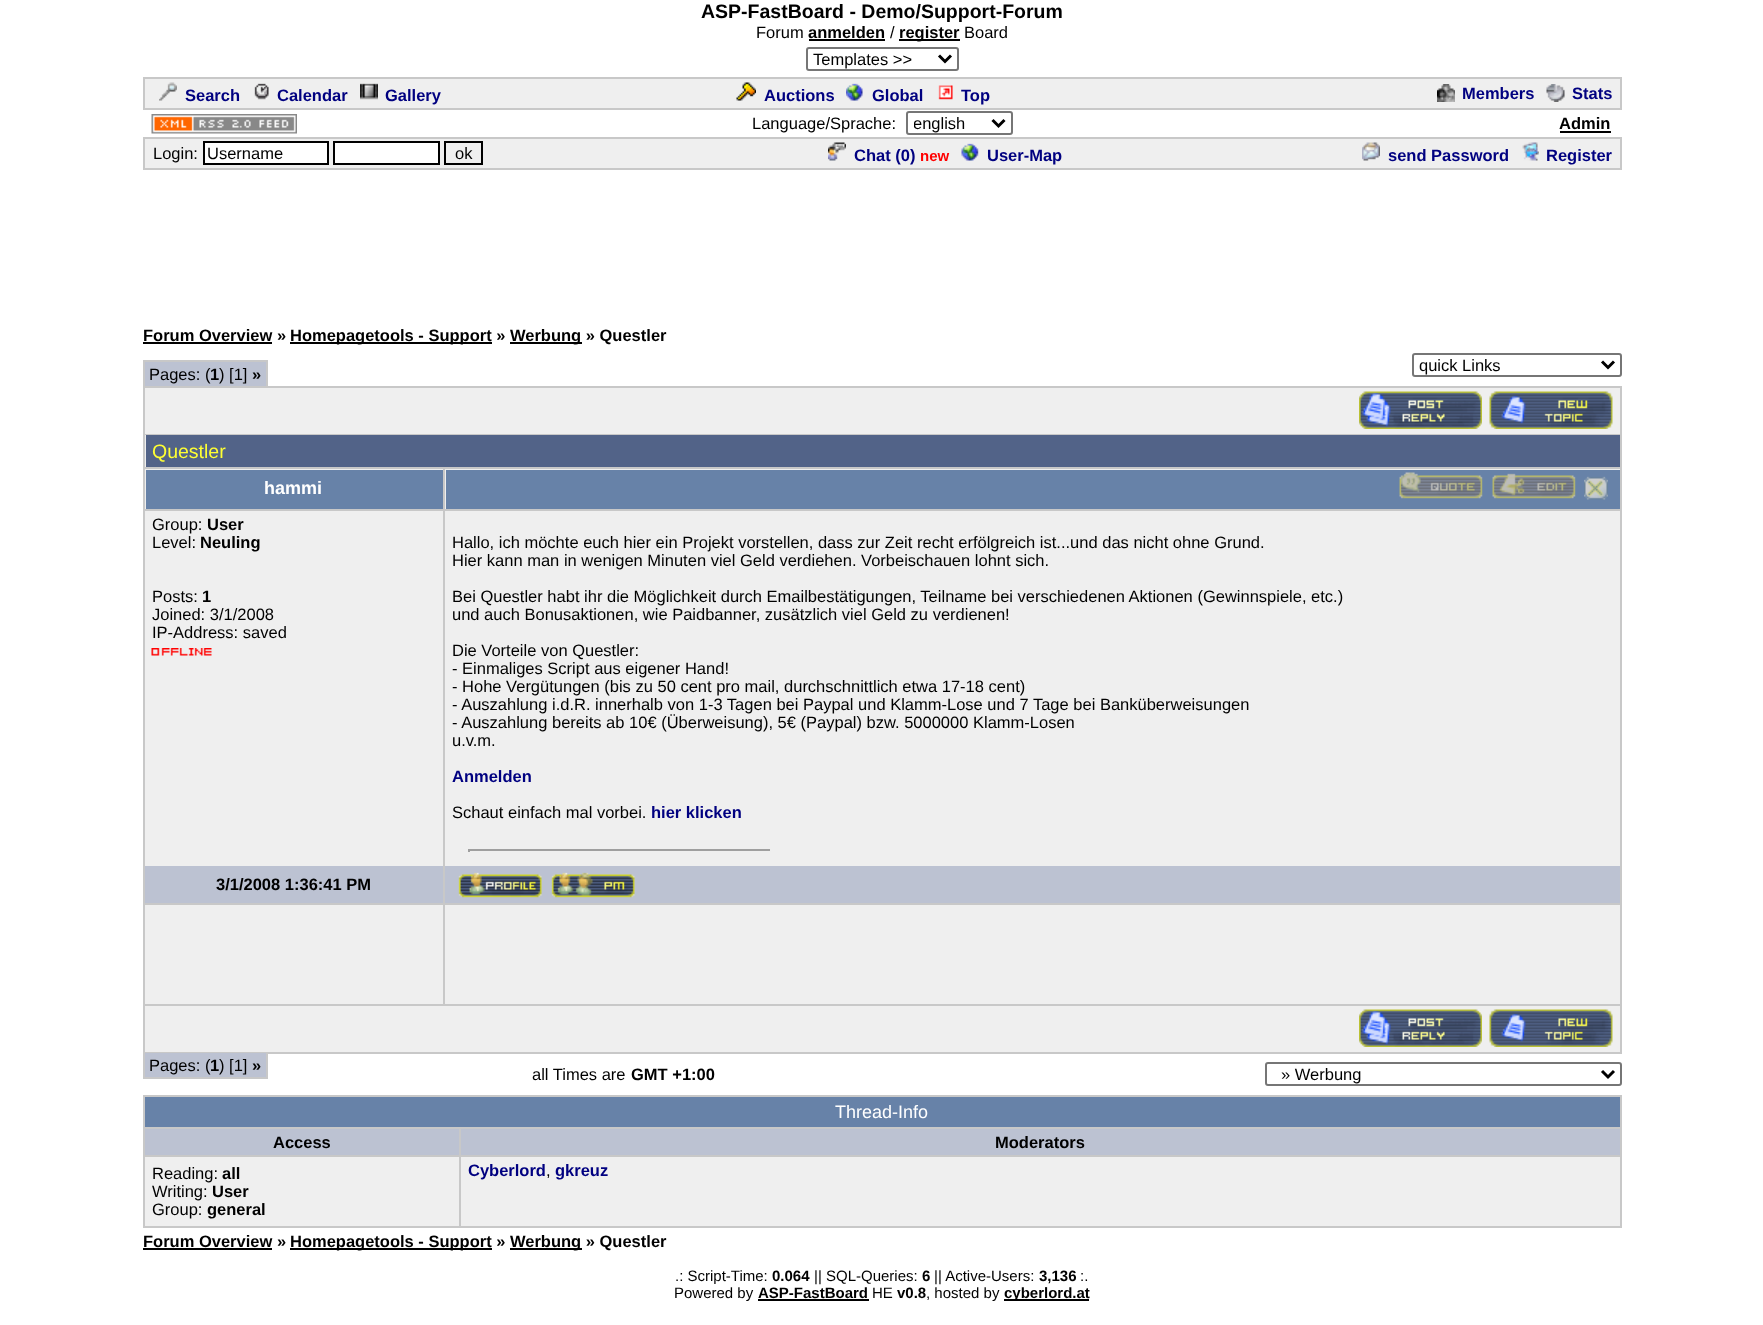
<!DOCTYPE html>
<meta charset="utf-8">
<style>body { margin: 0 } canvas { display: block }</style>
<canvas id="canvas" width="1763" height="1325"></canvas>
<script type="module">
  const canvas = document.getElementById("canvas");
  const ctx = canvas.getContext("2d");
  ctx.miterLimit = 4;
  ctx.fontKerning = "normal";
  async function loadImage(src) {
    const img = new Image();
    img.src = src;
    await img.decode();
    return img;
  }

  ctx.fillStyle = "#ffffff";
  ctx.fillRect(0, 0, 1763, 1325);
  ctx.font = "bold 19.5px Liberation Sans";
  ctx.fillStyle = "#000000";
  ctx.fillText("ASP-FastBoard - Demo/Support-Forum", 701, 18);
  ctx.font = "16.5px Liberation Sans";
  ctx.fillText("Forum", 756, 38);
  ctx.font = "bold 16.5px Liberation Sans";
  ctx.fillText("anmelden", 808, 38);
  ctx.fillRect(809, 39, 76, 2);
  ctx.font = "16.5px Liberation Sans";
  ctx.fillText("/", 890, 38);
  ctx.fillRect(899, 39, 61, 2);
  ctx.font = "bold 16.5px Liberation Sans";
  ctx.fillText("register", 899, 38);
  ctx.font = "16.5px Liberation Sans";
  ctx.fillText("Board", 964, 38);
  ctx.beginPath();
  ctx.roundRect(807, 48, 151, 22, 2);
  ctx.strokeStyle = "#767676";
  ctx.lineWidth = 2;
  ctx.stroke();
  ctx.beginPath();
  ctx.moveTo(939, 55.5);
  ctx.lineTo(945, 61.5);
  ctx.lineTo(951, 55.5);
  ctx.strokeStyle = "#000000";
  ctx.lineWidth = 3;
  ctx.stroke();
  ctx.fillText("Templates >>", 813, 65);
  ctx.fillStyle = "#efefef";
  ctx.fillRect(145, 79, 1475, 29);
  ctx.fillStyle = "#c8c8c8";
  ctx.fillRect(143, 77, 1479, 2);
  ctx.fillRect(1620, 77, 2, 33);
  ctx.fillRect(143, 108, 1479, 2);
  ctx.fillRect(143, 77, 2, 33);
  ctx.drawImage(await loadImage("img1.png"), 159, 82, 18, 19);
  ctx.font = "bold 16.5px Liberation Sans";
  ctx.fillStyle = "#000080";
  ctx.fillText("Search", 185, 101);
  ctx.drawImage(await loadImage("img2.png"), 254, 83, 15, 17);
  ctx.fillText("Calendar", 277, 101);
  ctx.drawImage(await loadImage("img3.png"), 360, 83, 18, 17);
  ctx.fillText("Gallery", 385, 101);
  ctx.drawImage(await loadImage("img4.png"), 736, 82, 20, 19);
  ctx.fillText("Auctions", 764, 101);
  ctx.drawImage(await loadImage("img5.png"), 846, 83, 17, 18);
  ctx.fillText("Global", 872, 101);
  ctx.drawImage(await loadImage("img6.png"), 938, 85, 15, 15);
  ctx.fillText("Top", 961, 101);
  ctx.drawImage(await loadImage("img7.png"), 1437, 84, 18, 18);
  ctx.fillText("Members", 1462, 99);
  ctx.drawImage(await loadImage("img8.png"), 1546, 84, 19, 18);
  ctx.fillText("Stats", 1572, 99);
  ctx.drawImage(await loadImage("img9.png"), 151, 114, 146, 20);
  ctx.font = "16.5px Liberation Sans";
  ctx.fillStyle = "#000000";
  ctx.fillText("Language/Sprache:", 752, 129);
  ctx.beginPath();
  ctx.roundRect(907, 112, 105, 22, 2);
  ctx.strokeStyle = "#767676";
  ctx.lineWidth = 2;
  ctx.stroke();
  ctx.beginPath();
  ctx.moveTo(992.5, 120);
  ctx.lineTo(998.5, 126);
  ctx.lineTo(1004.5, 120);
  ctx.strokeStyle = "#000000";
  ctx.lineWidth = 3;
  ctx.stroke();
  ctx.save();
  ctx.beginPath();
  ctx.rect(914, 113, 73, 21);
  ctx.clip();
  ctx.fillText("english", 913, 129);
  ctx.restore();
  ctx.font = "bold 16.5px Liberation Sans";
  ctx.fillText("Admin", 1559, 129);
  ctx.fillRect(1560, 131, 51, 2);
  ctx.fillStyle = "#efefef";
  ctx.fillRect(145, 139, 1475, 29);
  ctx.fillStyle = "#c8c8c8";
  ctx.fillRect(143, 137, 1479, 2);
  ctx.fillRect(1620, 137, 2, 33);
  ctx.fillRect(143, 168, 1479, 2);
  ctx.fillRect(143, 137, 2, 33);
  ctx.font = "16.5px Liberation Sans";
  ctx.fillStyle = "#000000";
  ctx.fillText("Login:", 153, 159);
  ctx.fillStyle = "#ffffff";
  ctx.beginPath();
  ctx.rect(204, 142, 124, 22);
  ctx.fill();
  ctx.lineWidth = 2;
  ctx.stroke();
  ctx.fillStyle = "#000000";
  ctx.fillText("Username", 207, 159);
  ctx.fillStyle = "#ffffff";
  ctx.beginPath();
  ctx.rect(334, 142, 105, 22);
  ctx.fill();
  ctx.stroke();
  ctx.strokeRect(445, 142, 37, 22);
  ctx.fillStyle = "#000000";
  ctx.fillText("ok", 455, 159);
  ctx.drawImage(await loadImage("img10.png"), 828, 142, 18, 19);
  ctx.font = "bold 16.5px Liberation Sans";
  ctx.fillStyle = "#000080";
  ctx.fillText("Chat (0)", 854, 161);
  ctx.font = "bold 15px Liberation Sans";
  ctx.fillStyle = "#ff0000";
  ctx.fillText("new", 920, 161);
  ctx.drawImage(await loadImage("img11.png"), 961, 143, 18, 18);
  ctx.font = "bold 16.5px Liberation Sans";
  ctx.fillStyle = "#000080";
  ctx.fillText("User-Map", 987, 161);
  ctx.drawImage(await loadImage("img12.png"), 1362, 142, 18, 19);
  ctx.fillText("send Password", 1388, 161);
  ctx.drawImage(await loadImage("img13.png"), 1522, 142, 17, 19);
  ctx.fillText("Register", 1546, 161);
  ctx.fillStyle = "#000000";
  ctx.fillText("Forum Overview »", 143, 341);
  ctx.fillRect(143, 342, 129, 2);
  ctx.fillRect(290, 342, 202, 2);
  ctx.fillText("Homepagetools - Support »", 290, 341);
  ctx.fillRect(510, 342, 72, 2);
  ctx.fillText("Werbung » Questler", 510, 341);
  ctx.fillStyle = "#bcc2d2";
  ctx.fillRect(145, 362, 121, 24);
  ctx.fillStyle = "#c8c8c8";
  ctx.fillRect(143, 360, 124, 2);
  ctx.fillRect(266, 360, 2, 26);
  ctx.fillRect(143, 360, 2, 26);
  ctx.font = "16.5px Liberation Sans";
  ctx.fillStyle = "#000000";
  ctx.fillText("Pages: (", 149, 380);
  ctx.font = "bold 16.5px Liberation Sans";
  ctx.fillText("1", 210, 380);
  ctx.font = "16.5px Liberation Sans";
  ctx.fillText(") [1]", 219, 380);
  ctx.font = "bold 16.5px Liberation Sans";
  ctx.fillText("»", 252, 380);
  ctx.beginPath();
  ctx.roundRect(1413, 354, 208, 22, 2);
  ctx.strokeStyle = "#767676";
  ctx.stroke();
  ctx.beginPath();
  ctx.moveTo(1602, 361.5);
  ctx.lineTo(1608, 367.5);
  ctx.lineTo(1614, 361.5);
  ctx.strokeStyle = "#000000";
  ctx.lineWidth = 3;
  ctx.stroke();
  ctx.font = "16.5px Liberation Sans";
  ctx.fillText("quick Links", 1419, 371);
  ctx.fillStyle = "#efefef";
  ctx.fillRect(145, 388, 1475, 46);
  ctx.fillStyle = "#c8c8c8";
  ctx.fillRect(143, 386, 1479, 2);
  ctx.fillRect(1620, 386, 2, 82);
  ctx.fillRect(143, 434, 1479, 1);
  ctx.fillRect(143, 386, 2, 82);
  ctx.drawImage(await loadImage("img14.png"), 1359, 391, 123, 38);
  ctx.drawImage(await loadImage("img15.png"), 1489, 391, 124, 38);
  ctx.fillStyle = "#efefef";
  ctx.fillRect(145, 435, 1, 32);
  ctx.fillStyle = "#526388";
  ctx.fillRect(146, 435, 1474, 32);
  ctx.font = "19.5px Liberation Sans";
  ctx.fillStyle = "#ffff33";
  ctx.fillText("Questler", 152, 458);
  ctx.fillStyle = "#efefef";
  ctx.fillRect(145, 469, 1475, 535);
  ctx.fillStyle = "#6782a8";
  ctx.fillRect(146, 470, 297, 39);
  ctx.fillStyle = "#c8c8c8";
  ctx.fillRect(443, 467, 1179, 2);
  ctx.fillRect(443, 509, 1179, 2);
  ctx.fillStyle = "#bcc2d2";
  ctx.fillRect(145, 866, 1475, 37);
  ctx.fillStyle = "#c8c8c8";
  ctx.fillRect(443, 903, 1179, 2);
  ctx.fillRect(443, 903, 2, 102);
  ctx.fillRect(143, 903, 301, 2);
  ctx.fillRect(443, 866, 2, 39);
  ctx.fillRect(443, 509, 2, 358);
  ctx.fillRect(143, 509, 301, 2);
  ctx.fillRect(443, 467, 2, 43);
  ctx.fillRect(143, 467, 301, 2);
  ctx.fillRect(143, 866, 2, 139);
  ctx.fillRect(143, 509, 2, 358);
  ctx.fillRect(143, 467, 2, 43);
  ctx.font = "bold 18px Liberation Sans";
  ctx.fillStyle = "#ffffff";
  ctx.fillText("hammi", 264, 494);
  ctx.fillStyle = "#6782a8";
  ctx.fillRect(446, 470, 1174, 39);
  ctx.fillStyle = "#c8c8c8";
  ctx.fillRect(1620, 866, 2, 139);
  ctx.fillRect(1620, 509, 2, 358);
  ctx.fillRect(1620, 467, 2, 43);
  ctx.drawImage(await loadImage("img16.png"), 1399, 472, 84, 27);
  ctx.drawImage(await loadImage("img17.png"), 1492, 473, 84, 26);
  ctx.drawImage(await loadImage("img18.png"), 1584, 476, 24, 24);
  ctx.font = "16.5px Liberation Sans";
  ctx.fillStyle = "#000000";
  ctx.fillText("Group:", 152, 530);
  ctx.font = "bold 16.5px Liberation Sans";
  ctx.fillText("User", 207, 530);
  ctx.font = "16.5px Liberation Sans";
  ctx.fillText("Level:", 152, 548);
  ctx.font = "bold 16.5px Liberation Sans";
  ctx.fillText("Neuling", 200, 548);
  ctx.font = "16.5px Liberation Sans";
  ctx.fillText("Posts:", 152, 602);
  ctx.font = "bold 16.5px Liberation Sans";
  ctx.fillText("1", 202, 602);
  ctx.font = "16.5px Liberation Sans";
  ctx.fillText("Joined: 3/1/2008", 152, 620);
  ctx.fillText("IP-Address: saved", 152, 638);
  ctx.drawImage(await loadImage("img19.png"), 151, 648, 61, 8);
  ctx.fillText("Hallo, ich möchte euch hier ein Projekt vorstellen, dass zur Zeit recht erfölgreich ist...und das nicht ohne Grund.", 452, 548);
  ctx.fillText("Hier kann man in wenigen Minuten viel Geld verdiehen. Vorbeischauen lohnt sich.", 452, 566);
  ctx.fillText("Bei Questler habt ihr die Möglichkeit durch Emailbestätigungen, Teilname bei verschiedenen Aktionen (Gewinnspiele, etc.)", 452, 602);
  ctx.fillText("und auch Bonusaktionen, wie Paidbanner, zusätzlich viel Geld zu verdienen!", 452, 620);
  ctx.fillText("Die Vorteile von Questler:", 452, 656);
  ctx.fillText("- Einmaliges Script aus eigener Hand!", 452, 674);
  ctx.fillText("- Hohe Vergütungen (bis zu 50 cent pro mail, durchschnittlich etwa 17-18 cent)", 452, 692);
  ctx.fillText("- Auszahlung i.d.R. innerhalb von 1-3 Tagen bei Paypal und Klamm-Lose und 7 Tage bei Banküberweisungen", 452, 710);
  ctx.fillText("- Auszahlung bereits ab 10€ (Überweisung), 5€ (Paypal) bzw. 5000000 Klamm-Losen", 452, 728);
  ctx.fillText("u.v.m.", 452, 746);
  ctx.font = "bold 16.5px Liberation Sans";
  ctx.fillStyle = "#000080";
  ctx.fillText("Anmelden", 452, 782);
  ctx.font = "16.5px Liberation Sans";
  ctx.fillStyle = "#000000";
  ctx.fillText("Schaut einfach mal vorbei.", 452, 818);
  ctx.font = "bold 16.5px Liberation Sans";
  ctx.fillStyle = "#000080";
  ctx.fillText("hier klicken", 651, 818);
  ctx.fillStyle = "#9f9f9f";
  ctx.fillRect(468, 849, 303, 2);
  ctx.fillStyle = "#eeeeee";
  ctx.fillRect(770, 849, 1, 3);
  ctx.fillStyle = "#9f9f9f";
  ctx.fillRect(468, 849, 2, 3);
  ctx.fillStyle = "#000000";
  ctx.fillText("3/1/2008 1:36:41 PM", 216, 890);
  ctx.drawImage(await loadImage("img20.png"), 458, 872, 84, 26);
  ctx.drawImage(await loadImage("img21.png"), 551, 872, 84, 26);
  ctx.fillStyle = "#efefef";
  ctx.fillRect(145, 1006, 1475, 46);
  ctx.fillStyle = "#c8c8c8";
  ctx.fillRect(143, 1004, 1479, 2);
  ctx.fillRect(1620, 1004, 2, 49);
  ctx.fillRect(143, 1052, 1479, 2);
  ctx.fillRect(143, 1004, 2, 49);
  ctx.drawImage(await loadImage("img14.png"), 1359, 1009, 123, 38);
  ctx.drawImage(await loadImage("img15.png"), 1489, 1009, 124, 38);
  ctx.fillStyle = "#bcc2d2";
  ctx.fillRect(145, 1053, 121, 24);
  ctx.fillStyle = "#c8c8c8";
  ctx.fillRect(266, 1053, 2, 26);
  ctx.fillRect(143, 1077, 124, 2);
  ctx.fillRect(143, 1053, 2, 26);
  ctx.font = "16.5px Liberation Sans";
  ctx.fillStyle = "#000000";
  ctx.fillText("Pages: (", 149, 1071);
  ctx.font = "bold 16.5px Liberation Sans";
  ctx.fillText("1", 210, 1071);
  ctx.font = "16.5px Liberation Sans";
  ctx.fillText(") [1]", 219, 1071);
  ctx.font = "bold 16.5px Liberation Sans";
  ctx.fillText("»", 252, 1071);
  ctx.font = "16.5px Liberation Sans";
  ctx.fillText("all Times are", 532, 1080);
  ctx.font = "bold 16.5px Liberation Sans";
  ctx.fillText("GMT +1:00", 631, 1080);
  ctx.beginPath();
  ctx.roundRect(1266, 1063, 355, 22, 2);
  ctx.strokeStyle = "#767676";
  ctx.lineWidth = 2;
  ctx.stroke();
  ctx.beginPath();
  ctx.moveTo(1602, 1071);
  ctx.lineTo(1608, 1077);
  ctx.lineTo(1614, 1071);
  ctx.strokeStyle = "#000000";
  ctx.lineWidth = 3;
  ctx.stroke();
  ctx.font = "16.5px Liberation Sans";
  ctx.fillText("» Werbung", 1281, 1080);
  ctx.fillStyle = "#efefef";
  ctx.fillRect(145, 1157, 1475, 69);
  ctx.fillStyle = "#6782a8";
  ctx.fillRect(145, 1097, 1475, 30);
  ctx.fillStyle = "#c8c8c8";
  ctx.fillRect(143, 1095, 1479, 2);
  ctx.fillRect(459, 1127, 1163, 2);
  ctx.fillRect(459, 1155, 1163, 2);
  ctx.fillRect(1620, 1155, 2, 72);
  ctx.fillRect(1620, 1127, 2, 30);
  ctx.fillRect(1620, 1095, 2, 33);
  ctx.fillStyle = "#bcc2d2";
  ctx.fillRect(145, 1129, 1475, 26);
  ctx.fillStyle = "#c8c8c8";
  ctx.fillRect(459, 1226, 1163, 2);
  ctx.fillRect(459, 1155, 2, 72);
  ctx.fillRect(143, 1155, 318, 2);
  ctx.fillRect(459, 1127, 2, 30);
  ctx.fillRect(143, 1127, 318, 2);
  ctx.fillRect(143, 1226, 318, 2);
  ctx.fillRect(143, 1155, 2, 72);
  ctx.fillRect(143, 1127, 2, 30);
  ctx.fillRect(143, 1095, 2, 33);
  ctx.font = "18px Liberation Sans";
  ctx.fillStyle = "#ffffff";
  ctx.fillText("Thread-Info", 835, 1118);
  ctx.font = "bold 16.5px Liberation Sans";
  ctx.fillStyle = "#000000";
  ctx.fillText("Access", 273, 1148);
  ctx.fillText("Moderators", 995, 1148);
  ctx.font = "16.5px Liberation Sans";
  ctx.fillText("Reading:", 152, 1179);
  ctx.font = "bold 16.5px Liberation Sans";
  ctx.fillText("all", 222, 1179);
  ctx.font = "16.5px Liberation Sans";
  ctx.fillText("Writing:", 152, 1197);
  ctx.font = "bold 16.5px Liberation Sans";
  ctx.fillText("User", 212, 1197);
  ctx.font = "16.5px Liberation Sans";
  ctx.fillText("Group:", 152, 1215);
  ctx.font = "bold 16.5px Liberation Sans";
  ctx.fillText("general", 207, 1215);
  ctx.fillStyle = "#000080";
  ctx.fillText("Cyberlord", 468, 1176);
  ctx.font = "16.5px Liberation Sans";
  ctx.fillStyle = "#000000";
  ctx.fillText(",", 546, 1176);
  ctx.font = "bold 16.5px Liberation Sans";
  ctx.fillStyle = "#000080";
  ctx.fillText("gkreuz", 555, 1176);
  ctx.fillStyle = "#000000";
  ctx.fillText("Forum Overview »", 143, 1247);
  ctx.fillRect(143, 1248, 129, 2);
  ctx.fillRect(290, 1248, 202, 2);
  ctx.fillText("Homepagetools - Support »", 290, 1247);
  ctx.fillRect(510, 1248, 72, 2);
  ctx.fillText("Werbung » Questler", 510, 1247);
  ctx.font = "15px Liberation Sans";
  ctx.fillText(".: Script-Time:", 675, 1281);
  ctx.font = "bold 15px Liberation Sans";
  ctx.fillText("0.064", 772, 1281);
  ctx.font = "15px Liberation Sans";
  ctx.fillText("|| SQL-Queries:", 814, 1281);
  ctx.font = "bold 15px Liberation Sans";
  ctx.fillText("6", 922, 1281);
  ctx.font = "15px Liberation Sans";
  ctx.fillText("|| Active-Users:", 934, 1281);
  ctx.font = "bold 15px Liberation Sans";
  ctx.fillText("3,136", 1039, 1281);
  ctx.font = "15px Liberation Sans";
  ctx.fillText(":.", 1080, 1281);
  ctx.fillText("Powered by", 674, 1298);
  ctx.font = "bold 15px Liberation Sans";
  ctx.fillText("ASP-FastBoard", 758, 1298);
  ctx.fillRect(758, 1299, 111, 2);
  ctx.font = "15px Liberation Sans";
  ctx.fillText("HE", 872, 1298);
  ctx.font = "bold 15px Liberation Sans";
  ctx.fillText("v0.8", 897, 1298);
  ctx.font = "15px Liberation Sans";
  ctx.fillText(", hosted by", 926, 1298);
  ctx.fillRect(1004, 1299, 85, 2);
  ctx.font = "bold 15px Liberation Sans";
  ctx.fillText("cyberlord.at", 1004, 1298);
</script>
